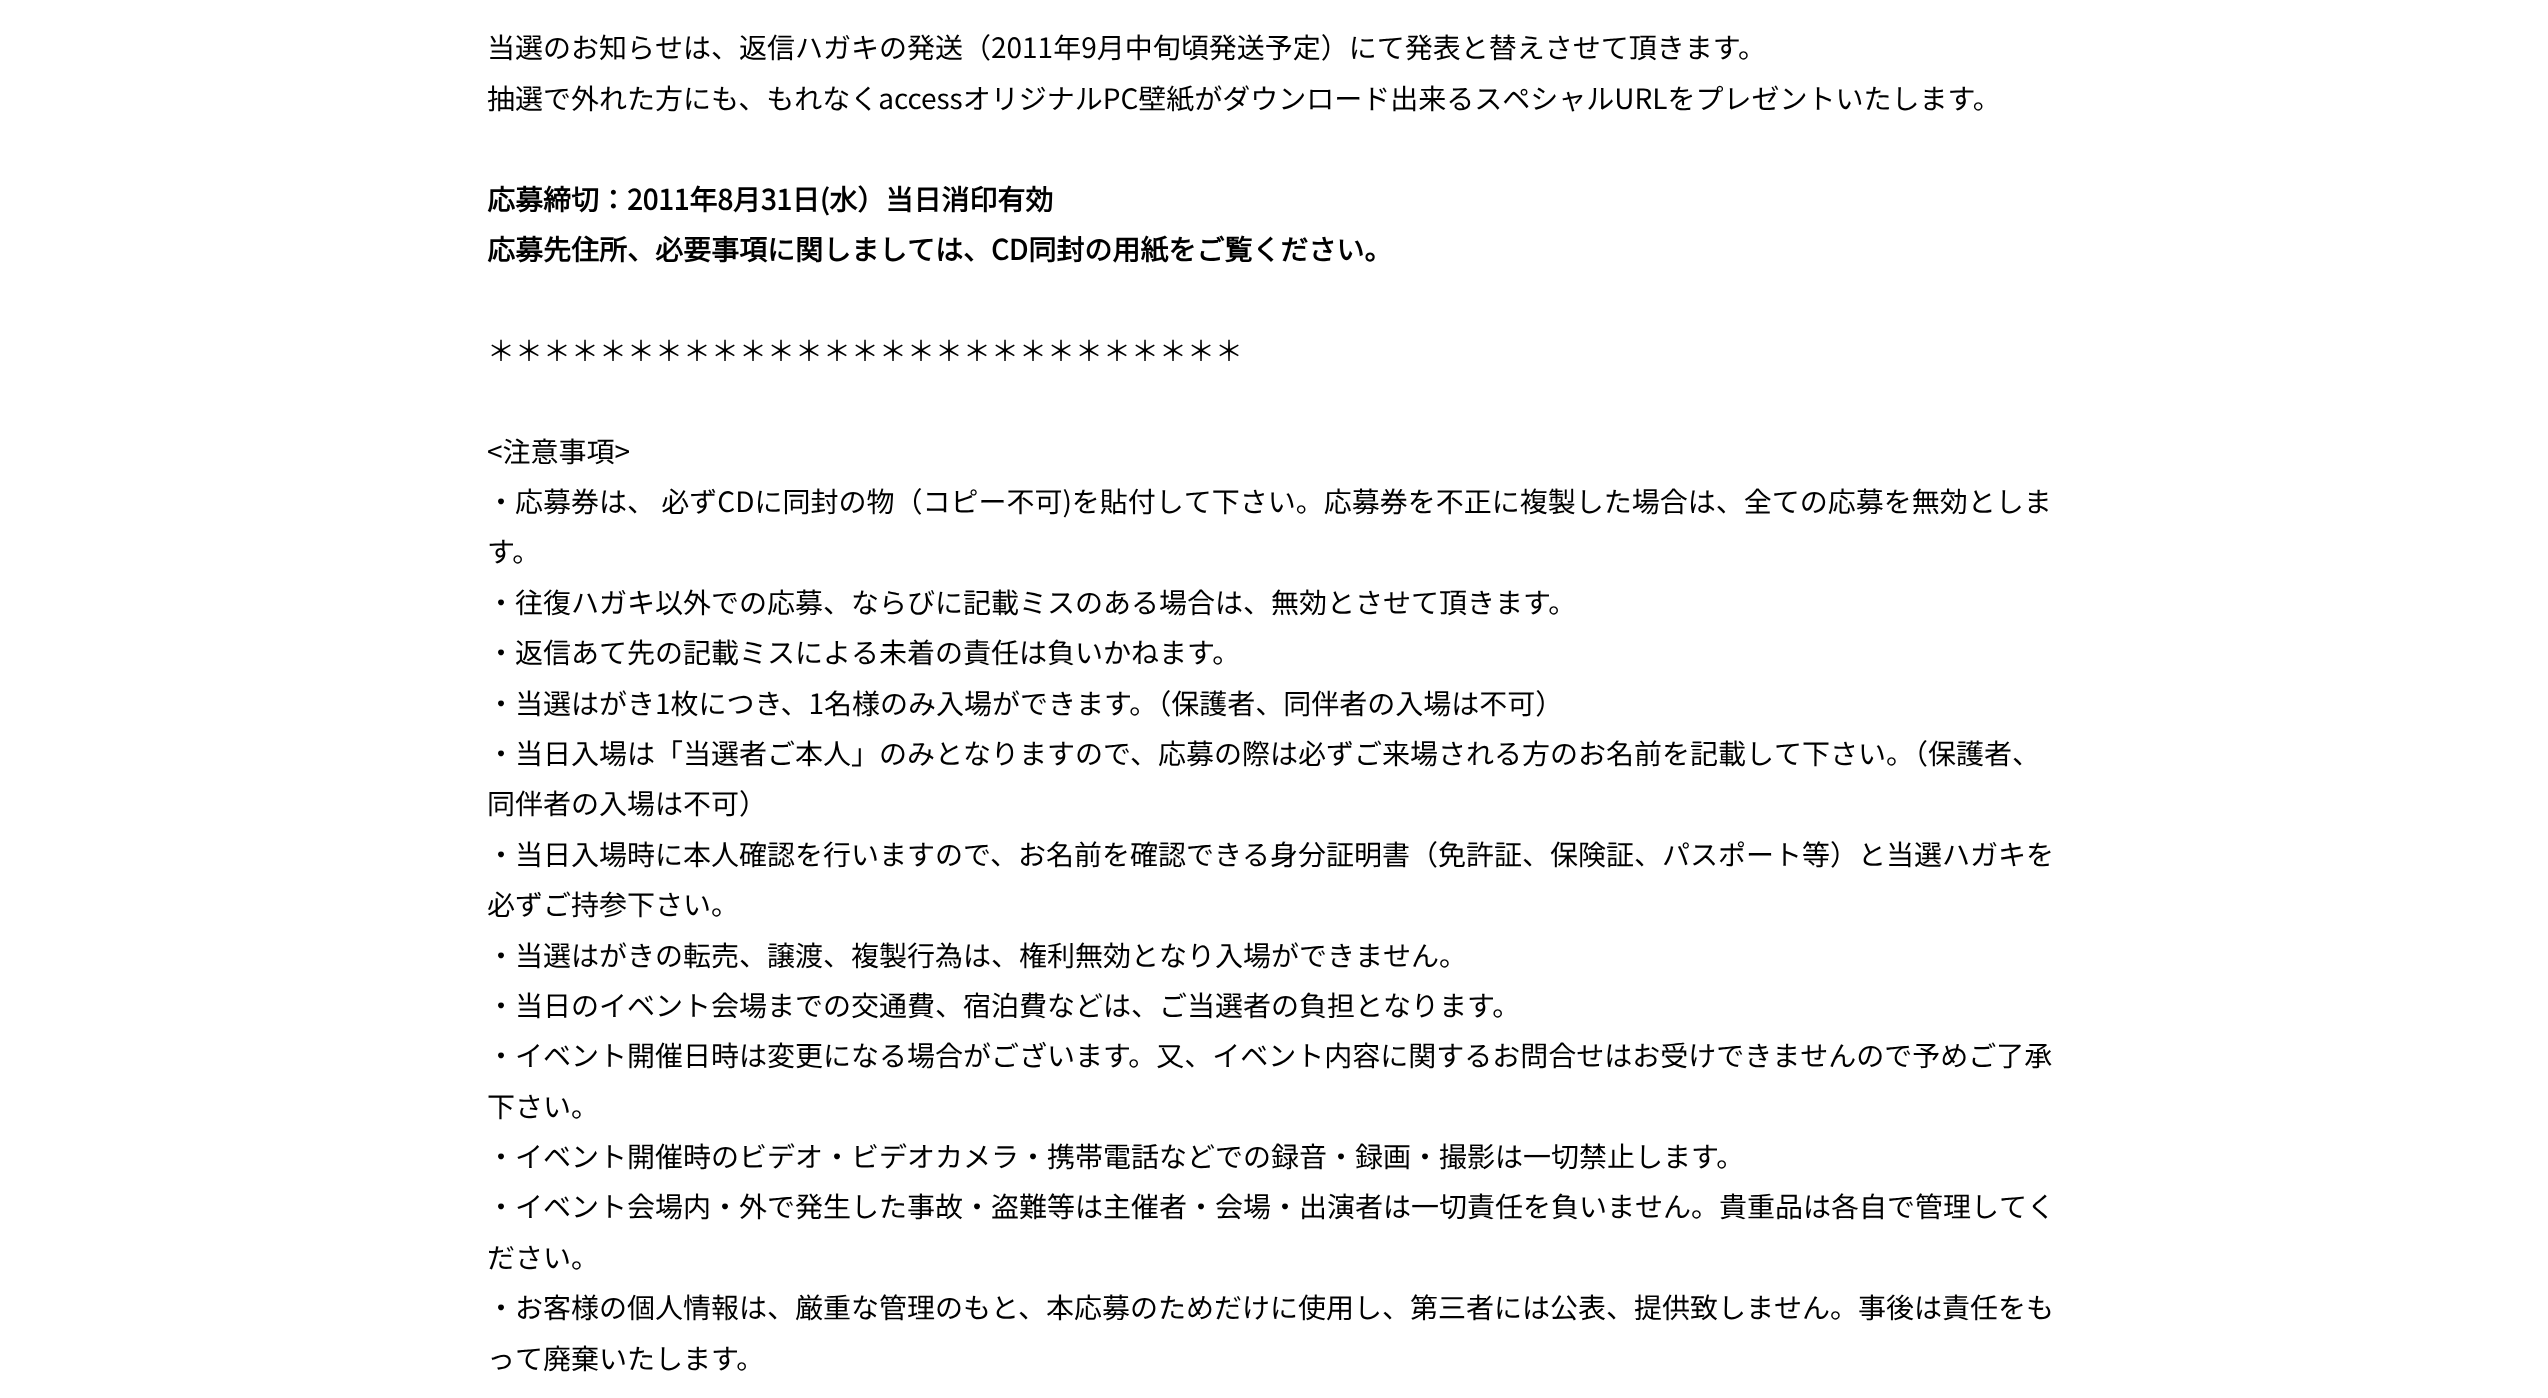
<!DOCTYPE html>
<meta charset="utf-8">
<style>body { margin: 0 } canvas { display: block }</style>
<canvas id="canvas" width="2548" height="1398"></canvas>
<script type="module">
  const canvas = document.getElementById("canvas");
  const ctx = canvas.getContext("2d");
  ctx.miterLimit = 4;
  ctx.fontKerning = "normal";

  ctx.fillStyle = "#ffffff";
  ctx.fillRect(0, 0, 2548, 1398);
  ctx.font = "100 28px Noto Sans JP";
  ctx.fillStyle = "#000000";
  ctx.fillText("当選のお知らせは、返信ハガキの発送（2011年9月中旬頃発送予定）にて発表と替えさせて頂きます。", 487, 58);
  ctx.fillText("抽選で外れた方にも、もれなくaccessオリジナルPC壁紙がダウンロード出来るスペシャルURLをプレゼントいたします。", 487, 109);
  ctx.font = "bold 28px Noto Sans JP";
  ctx.fillText("応募締切：2011年8月31日(水）当日消印有効", 487, 210);
  ctx.fillText("応募先住所、必要事項に関しましては、CD同封の用紙をご覧ください。", 487, 260);
  ctx.font = "100 28px Noto Sans JP";
  ctx.fillText("＊＊＊＊＊＊＊＊＊＊＊＊＊＊＊＊＊＊＊＊＊＊＊＊＊＊＊", 487, 361);
  ctx.fillText("<注意事項>", 487, 462);
  ctx.fillText("・応募券は、 必ずCDに同封の物（コピー不可)を貼付して下さい。応募券を不正に複製した場合は、全ての応募を無効としま", 487, 512);
  ctx.fillText("す。", 487, 562);
  ctx.fillText("・往復ハガキ以外での応募、ならびに記載ミスのある場合は、無効とさせて頂きます。", 487, 613);
  ctx.fillText("・返信あて先の記載ミスによる未着の責任は負いかねます。", 487, 663);
  ctx.fillText("・当選はがき1枚につき、1名様のみ入場ができます。（保護者、同伴者の入場は不可）", 487, 714);
  ctx.fillText("・当日入場は「当選者ご本人」のみとなりますので、応募の際は必ずご来場される方のお名前を記載して下さい。（保護者、", 487, 764);
  ctx.fillText("同伴者の入場は不可）", 487, 814);
  ctx.fillText("・当日入場時に本人確認を行いますので、お名前を確認できる身分証明書（免許証、保険証、パスポート等）と当選ハガキを", 487, 865);
  ctx.fillText("必ずご持参下さい。", 487, 915);
  ctx.fillText("・当選はがきの転売、譲渡、複製行為は、権利無効となり入場ができません。", 487, 966);
  ctx.fillText("・当日のイベント会場までの交通費、宿泊費などは、ご当選者の負担となります。", 487, 1016);
  ctx.fillText("・イベント開催日時は変更になる場合がございます。又、イベント内容に関するお問合せはお受けできませんので予めご了承", 487, 1066);
  ctx.fillText("下さい。", 487, 1117);
  ctx.fillText("・イベント開催時のビデオ・ビデオカメラ・携帯電話などでの録音・録画・撮影は一切禁止します。", 487, 1167);
  ctx.fillText("・イベント会場内・外で発生した事故・盗難等は主催者・会場・出演者は一切責任を負いません。貴重品は各自で管理してく", 487, 1217);
  ctx.fillText("ださい。", 487, 1268);
  ctx.fillText("・お客様の個人情報は、厳重な管理のもと、本応募のためだけに使用し、第三者には公表、提供致しません。事後は責任をも", 487, 1318);
  ctx.fillText("って廃棄いたします。", 487, 1369);
</script>
